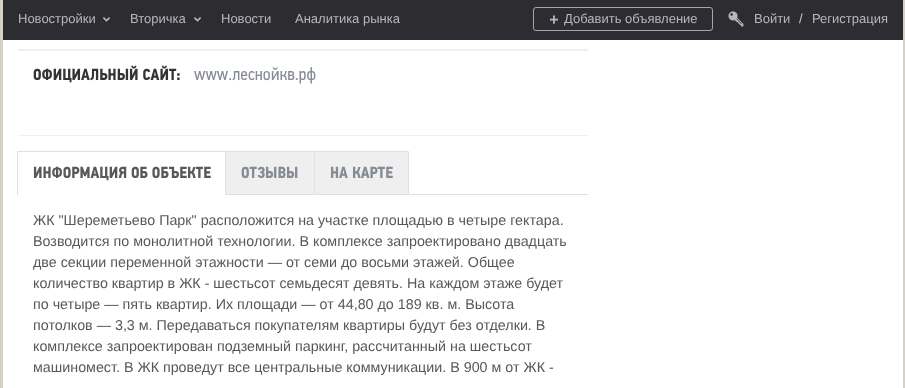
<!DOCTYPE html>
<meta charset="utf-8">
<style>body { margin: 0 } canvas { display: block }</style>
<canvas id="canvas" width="905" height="388"></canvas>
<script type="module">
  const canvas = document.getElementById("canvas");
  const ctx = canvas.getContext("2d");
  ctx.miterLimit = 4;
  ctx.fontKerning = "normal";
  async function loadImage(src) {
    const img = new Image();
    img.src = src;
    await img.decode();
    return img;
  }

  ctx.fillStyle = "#d6d1c7";
  ctx.fillRect(0, 0, 905, 388);
  ctx.fillStyle = "#2d2d31";
  ctx.fillRect(3, 0, 900, 40);
  ctx.font = "13px Liberation Sans";
  ctx.fillStyle = "#b7b7c1";
  ctx.fillText("Новостройки", 18, 23);
  ctx.drawImage(await loadImage("img1.png"), 103, 17, 7, 5);
  ctx.fillText("Вторичка", 130, 23);
  ctx.drawImage(await loadImage("img1.png"), 194, 17, 7, 5);
  ctx.fillText("Новости", 221, 23);
  ctx.fillText("Аналитика рынка", 295, 23);
  ctx.beginPath();
  ctx.roundRect(533.5, 7.5, 179, 23, 2.5);
  ctx.strokeStyle = "#a5a5b0";
  ctx.stroke();
  ctx.font = "italic bold 16px Liberation Sans";
  ctx.fillText("+", 549, 25);
  ctx.font = "13px Liberation Sans";
  ctx.fillText("Добавить объявление", 564, 23);
  ctx.drawImage(await loadImage("img2.png"), 728, 11, 16, 16);
  ctx.fillText("Войти", 754, 23);
  ctx.fillStyle = "#c7cbd1";
  ctx.fillText("/", 799, 23);
  ctx.fillStyle = "#b7b7c1";
  ctx.fillText("Регистрация", 812, 23);
  ctx.fillStyle = "#ffffff";
  ctx.fillRect(3, 40, 900, 348);
  ctx.fillStyle = "#efefef";
  ctx.fillRect(18, 49, 570, 2);
  ctx.font = "bold 16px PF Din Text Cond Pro";
  ctx.fillStyle = "#333333";
  ctx.fillText("ОФИЦИАЛЬНЫЙ САЙТ:", 33, 80);
  ctx.font = "18px PF Din Text Cond Pro";
  ctx.fillStyle = "#868c94";
  ctx.fillText("www.леснойкв.рф", 194, 80);
  ctx.fillStyle = "#efefef";
  ctx.fillRect(18, 135, 570, 1);
  ctx.fillStyle = "#e0e0e0";
  ctx.fillRect(409, 194, 179, 1);
  ctx.fillRect(17, 151, 209, 1);
  ctx.fillRect(17, 151, 1, 44);
  ctx.font = "bold 16px PF Din Text Cond Pro";
  ctx.fillStyle = "#585858";
  ctx.fillText("ИНФОРМАЦИЯ ОБ ОБЪЕКТЕ", 33, 178);
  ctx.fillStyle = "#efefef";
  ctx.beginPath();
  ctx.rect(225.5, 151.5, 89, 43);
  ctx.fill();
  ctx.strokeStyle = "#e0e0e0";
  ctx.stroke();
  ctx.fillStyle = "#868c94";
  ctx.fillText("ОТЗЫВЫ", 241, 178);
  ctx.fillStyle = "#efefef";
  ctx.beginPath();
  ctx.rect(314.5, 151.5, 94, 43);
  ctx.fill();
  ctx.stroke();
  ctx.fillStyle = "#868c94";
  ctx.fillText("НА КАРТЕ", 330, 178);
  ctx.font = "14.3px Liberation Sans";
  ctx.fillStyle = "#585858";
  ctx.fillText("ЖК \"Шереметьево Парк\" расположится на участке площадью в четыре гектара.", 33, 225);
  ctx.fillText("Возводится по монолитной технологии. В комплексе запроектировано двадцать", 33, 246);
  ctx.fillText("две секции переменной этажности — от семи до восьми этажей. Общее", 33, 267);
  ctx.fillText("количество квартир в ЖК - шестьсот семьдесят девять. На каждом этаже будет", 33, 288);
  ctx.fillText("по четыре — пять квартир. Их площади — от 44,80 до 189 кв. м. Высота", 33, 309);
  ctx.fillText("потолков — 3,3 м. Передаваться покупателям квартиры будут без отделки. В", 33, 330);
  ctx.fillText("комплексе запроектирован подземный паркинг, рассчитанный на шестьсот", 33, 351);
  ctx.fillText("машиномест. В ЖК проведут все центральные коммуникации. В 900 м от ЖК -", 33, 372);
</script>
